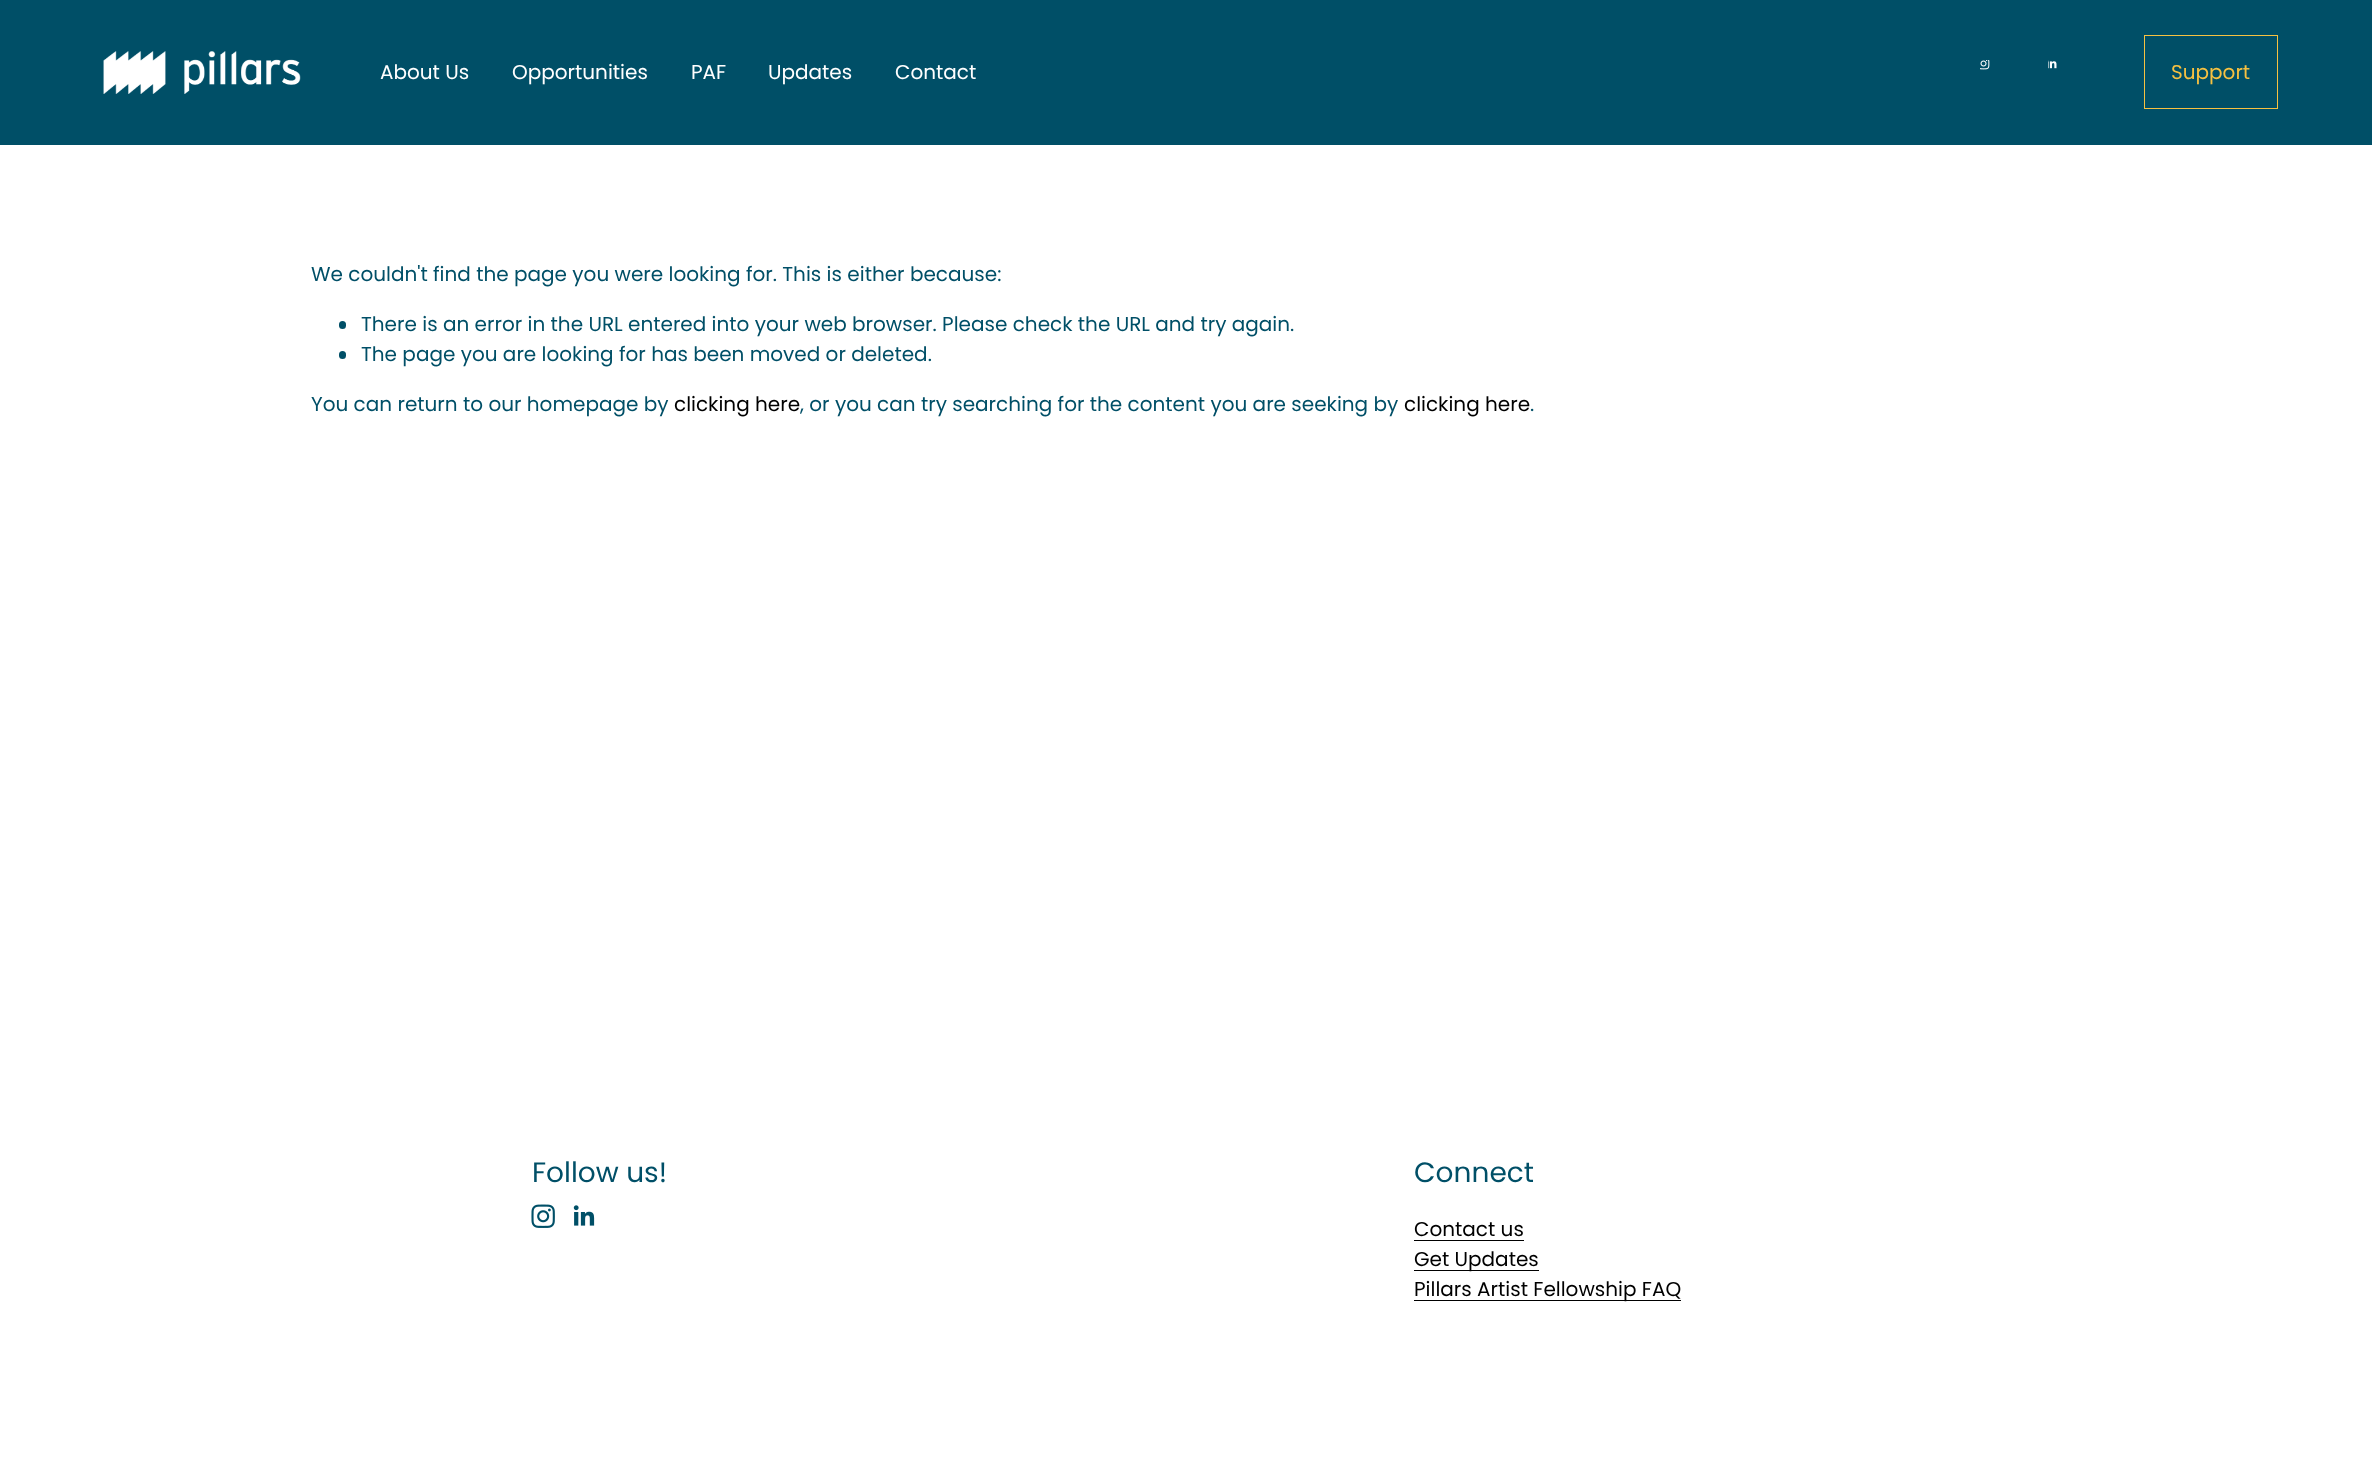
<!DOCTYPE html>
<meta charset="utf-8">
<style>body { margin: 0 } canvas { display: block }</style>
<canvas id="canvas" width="2372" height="1473"></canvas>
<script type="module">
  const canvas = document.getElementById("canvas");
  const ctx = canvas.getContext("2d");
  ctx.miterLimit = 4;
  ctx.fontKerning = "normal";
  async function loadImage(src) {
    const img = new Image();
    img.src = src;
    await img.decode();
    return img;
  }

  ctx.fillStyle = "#ffffff";
  ctx.fillRect(0, 0, 2372, 1473);
  ctx.fillStyle = "#004f67";
  ctx.fillRect(0, 0, 2372, 145);
  ctx.drawImage(await loadImage("img1.png"), 103, 51, 198, 43);
  ctx.font = "20px Poppins";
  ctx.fillStyle = "#ffffff";
  ctx.fillText("About Us", 380, 79);
  ctx.fillText("Opportunities", 512, 79);
  ctx.fillText("PAF", 691, 79);
  ctx.fillText("Updates", 768, 79);
  ctx.fillText("Contact", 895, 79);
  ctx.drawImage(await loadImage("img2.png"), 1980, 60, 10, 10);
  ctx.drawImage(await loadImage("img3.png"), 2048, 60, 9, 9);
  ctx.strokeStyle = "#f6c141";
  ctx.strokeRect(2144.5, 35.5, 133, 73);
  ctx.fillStyle = "#f6c141";
  ctx.fillText("Support", 2171, 79);
  ctx.fillStyle = "#004f67";
  ctx.fillText("We couldn't find the page you were looking for. This is either because:", 311, 281);
  ctx.beginPath();
  ctx.roundRect(339, 321, 7, 8, 3.5);
  ctx.fill();
  ctx.fillText("There is an error in the URL entered into your web browser. Please check the URL and try again.", 361, 331);
  ctx.beginPath();
  ctx.roundRect(339, 351, 7, 8, 3.5);
  ctx.fill();
  ctx.fillText("The page you are looking for has been moved or deleted.", 361, 361);
  ctx.fillText("You can return to our homepage by", 311, 411);
  ctx.fillStyle = "#000000";
  ctx.fillText("clicking here", 674, 411);
  ctx.fillStyle = "#004f67";
  ctx.fillText(", or you can try searching for the content you are seeking by", 800, 411);
  ctx.fillStyle = "#000000";
  ctx.fillText("clicking here", 1404, 411);
  ctx.fillStyle = "#004f67";
  ctx.fillText(".", 1530, 411);
  ctx.font = "28px Poppins";
  ctx.fillText("Follow us!", 532, 1182);
  ctx.fillText("Connect", 1414, 1182);
  ctx.font = "20px Poppins";
  ctx.fillStyle = "#000000";
  ctx.fillText("Contact us", 1414, 1236);
  ctx.fillRect(1414, 1240, 110, 1);
  ctx.fillRect(1414, 1270, 125, 1);
  ctx.fillText("Get Updates", 1414, 1266);
  ctx.fillRect(1414, 1300, 267, 1);
  ctx.fillText("Pillars Artist Fellowship FAQ", 1414, 1296);
  ctx.drawImage(await loadImage("img4.png"), 531, 1204, 24, 24);
  ctx.drawImage(await loadImage("img5.png"), 573, 1205, 22, 21);
</script>
